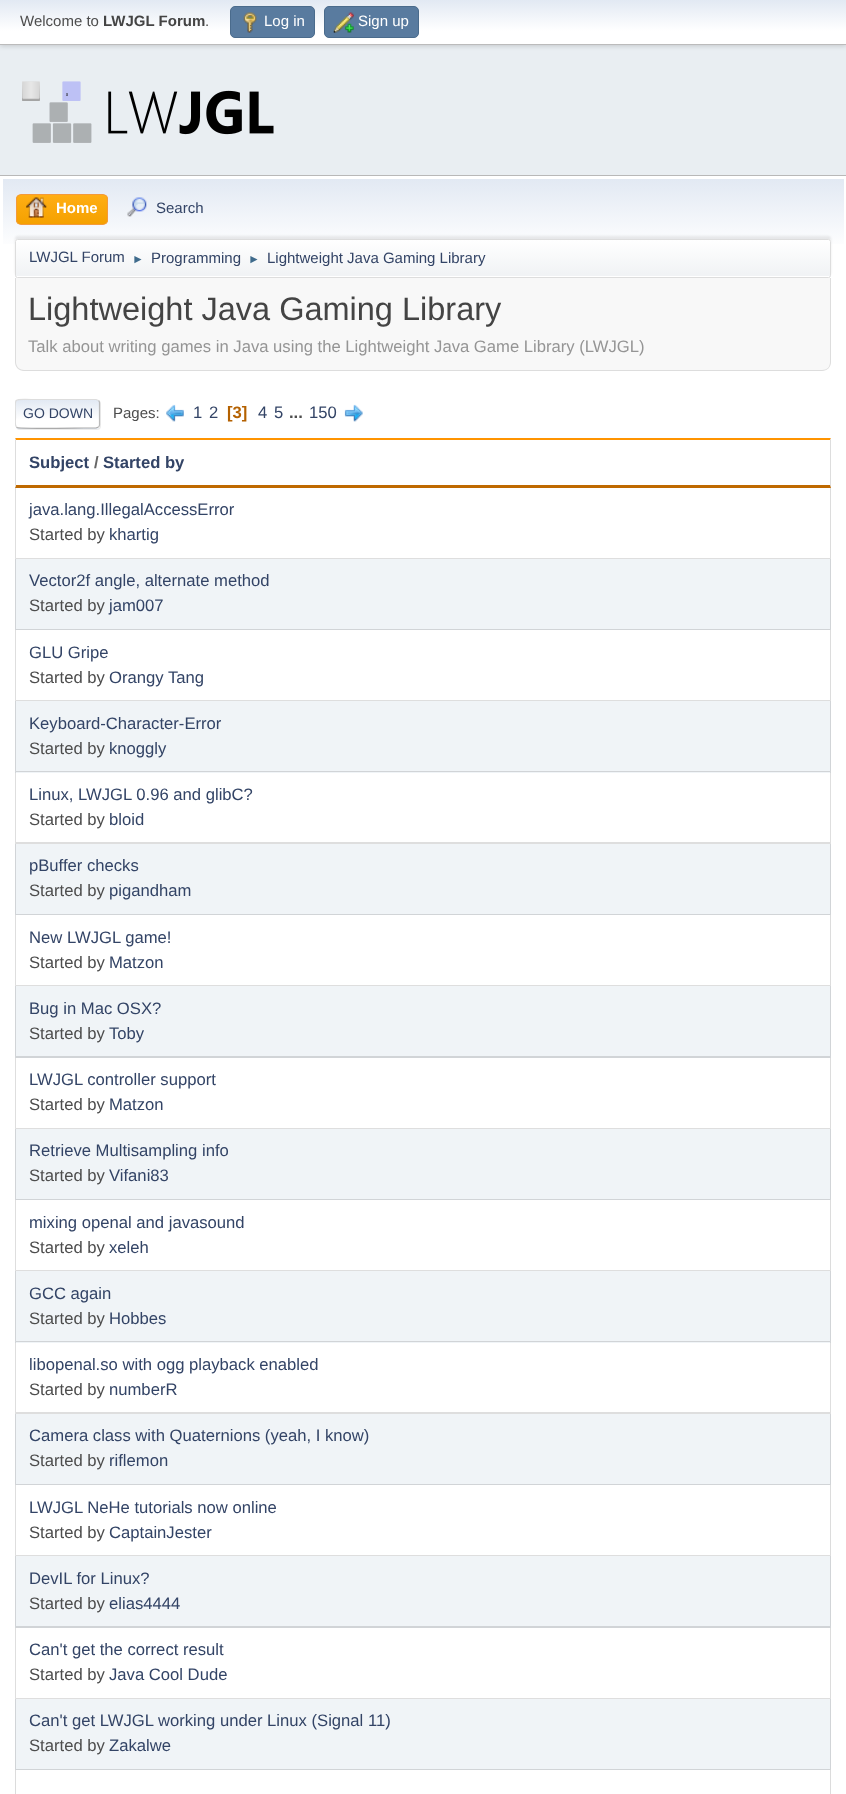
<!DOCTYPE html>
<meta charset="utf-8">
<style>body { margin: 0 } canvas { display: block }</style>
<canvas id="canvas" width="846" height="1794"></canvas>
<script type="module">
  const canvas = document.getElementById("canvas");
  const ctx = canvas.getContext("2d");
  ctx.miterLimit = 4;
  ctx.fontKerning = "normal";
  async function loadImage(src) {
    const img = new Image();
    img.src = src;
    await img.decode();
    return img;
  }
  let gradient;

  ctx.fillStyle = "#e9eef2";
  ctx.fillRect(0, 0, 846, 1794);
  ctx.fillStyle = "rgba(0, 0, 0, 0.16)";
  ctx.filter = "blur(2.5px)";
  ctx.beginPath();
  ctx.rect(0, 1, 846, 45);
  ctx.fill();
  ctx.filter = "none";
  gradient = ctx.createLinearGradient(423, 0, 423, 44);
  gradient.addColorStop(0, "#e2e9f3");
  gradient.addColorStop(0.7, "#ffffff");
  ctx.fillStyle = gradient;
  ctx.fillRect(0, 0, 846, 44);
  ctx.fillStyle = "#bbbbbb";
  ctx.fillRect(0, 44, 846, 1);
  ctx.font = "15px Liberation Sans";
  ctx.fillStyle = "#4d4d4d";
  ctx.fillText("Welcome to", 20, 26);
  ctx.font = "bold 15px Liberation Sans";
  ctx.fillStyle = "#444444";
  ctx.fillText("LWJGL Forum", 103, 26);
  ctx.font = "15px Liberation Sans";
  ctx.fillStyle = "#4d4d4d";
  ctx.fillText(".", 205, 26);
  ctx.fillStyle = "#597b9f";
  ctx.beginPath();
  ctx.roundRect(230.5, 6.5, 84, 31, 4.5);
  ctx.fill();
  ctx.strokeStyle = "#4a6b8c";
  ctx.stroke();
  ctx.drawImage(await loadImage("img1.png"), 243, 12, 14, 21);
  ctx.fillStyle = "#ffffff";
  ctx.fillText("Log in", 264, 26);
  ctx.fillStyle = "#597b9f";
  ctx.beginPath();
  ctx.roundRect(324.5, 6.5, 94, 31, 4.5);
  ctx.fill();
  ctx.stroke();
  ctx.drawImage(await loadImage("img2.png"), 333, 12, 21, 21);
  ctx.fillStyle = "#ffffff";
  ctx.fillText("Sign up", 358, 26);
  ctx.drawImage(await loadImage("img3.png"), 22, 81, 252, 62);
  ctx.fillRect(0, 176, 846, 1618);
  ctx.fillStyle = "#b8b8b8";
  ctx.fillRect(0, 175, 846, 1);
  gradient = ctx.createLinearGradient(423, 179, 423, 280);
  gradient.addColorStop(0, "#e2e9f3");
  gradient.addColorStop(0.7, "#ffffff");
  ctx.fillStyle = gradient;
  ctx.fillRect(3, 179, 841, 65);
  ctx.save();
  ctx.beginPath();
  ctx.roundRect(16, 194, 92, 31, 5);
  ctx.clip();
  gradient = ctx.createLinearGradient(62, 195, 62, 224);
  gradient.addColorStop(0, "#ffae14");
  gradient.addColorStop(1, "#f5a100");
  ctx.fillStyle = gradient;
  ctx.fillRect(16, 195, 92, 29);
  ctx.restore();
  ctx.beginPath();
  ctx.roundRect(16.5, 194.5, 91, 30, 4.5);
  ctx.strokeStyle = "#f49a3a";
  ctx.stroke();
  ctx.drawImage(await loadImage("img4.png"), 26, 197, 21, 21);
  ctx.font = "bold 15px Liberation Sans";
  ctx.fillStyle = "#ffffff";
  ctx.fillText("Home", 56, 213);
  ctx.drawImage(await loadImage("img5.png"), 127, 197, 20, 20);
  ctx.font = "15px Liberation Sans";
  ctx.fillStyle = "#334466";
  ctx.fillText("Search", 156, 213);
  ctx.fillStyle = "rgba(0, 0, 0, 0.08)";
  ctx.filter = "blur(1px)";
  ctx.beginPath();
  ctx.roundRect(15, 236, 816, 39, 2.5);
  ctx.fill();
  ctx.filter = "none";
  ctx.fillStyle = "#ffffff";
  ctx.beginPath();
  ctx.roundRect(15, 239, 816, 39, 2.5);
  ctx.fill();
  gradient = ctx.createLinearGradient(423, 240, 423, 276);
  gradient.addColorStop(0, "#ffffff");
  gradient.addColorStop(0.95, "#f1f3f5");
  ctx.fillStyle = gradient;
  ctx.fillRect(15, 240, 816, 36);
  ctx.beginPath();
  ctx.roundRect(15.5, 239.5, 815, 38, 2);
  ctx.strokeStyle = "#dddddd";
  ctx.stroke();
  ctx.fillStyle = "#334466";
  ctx.fillText("LWJGL Forum", 29, 262);
  ctx.font = "12px Liberation Sans";
  ctx.fillStyle = "#3f6b8c";
  ctx.fillText("►", 132, 263);
  ctx.font = "15px Liberation Sans";
  ctx.fillStyle = "#334466";
  ctx.fillText("Programming", 151, 263);
  ctx.font = "12px Liberation Sans";
  ctx.fillStyle = "#3f6b8c";
  ctx.fillText("►", 248, 263);
  ctx.font = "15px Liberation Sans";
  ctx.fillStyle = "#334466";
  ctx.fillText("Lightweight Java Gaming Library", 267, 263);
  ctx.fillStyle = "#f8f8f8";
  ctx.beginPath();
  ctx.roundRect(15, 278, 816, 93, [0, 0, 9, 9]);
  ctx.fill();
  ctx.fillStyle = "#dddddd";
  ctx.beginPath();
  ctx.moveTo(15, 278);
  ctx.lineTo(831, 278);
  ctx.lineTo(831, 362);
  ctx.bezierCurveTo(831, 367, 827, 371, 822, 371);
  ctx.lineTo(24, 371);
  ctx.bezierCurveTo(19, 371, 15, 367, 15, 362);
  ctx.closePath();
  ctx.moveTo(16, 278);
  ctx.lineTo(830, 278);
  ctx.lineTo(830, 362);
  ctx.bezierCurveTo(830, 367, 827, 370, 822, 370);
  ctx.lineTo(24, 370);
  ctx.bezierCurveTo(20, 370, 16, 367, 16, 362);
  ctx.closePath();
  ctx.fill("evenodd");
  ctx.font = "32.5px Liberation Sans";
  ctx.fillStyle = "#444444";
  ctx.fillText("Lightweight Java Gaming Library", 28, 320);
  ctx.font = "16.65px Liberation Sans";
  ctx.fillStyle = "#959595";
  ctx.fillText("Talk about writing games in Java using the Lightweight Java Game Library (LWJGL)", 28, 352);
  ctx.fillStyle = "rgba(221, 221, 221, 0.57)";
  ctx.filter = "blur(0.5px)";
  ctx.beginPath();
  ctx.roundRect(16, 400, 85, 30, 4);
  ctx.fill();
  ctx.filter = "none";
  ctx.fillStyle = "#ffffff";
  ctx.beginPath();
  ctx.roundRect(15, 399, 85, 30, 4);
  ctx.fill();
  ctx.save();
  ctx.beginPath();
  ctx.roundRect(15, 399, 85, 30, 4);
  ctx.clip();
  gradient = ctx.createLinearGradient(58, 400, 58, 428);
  gradient.addColorStop(0, "#e2e9f3");
  gradient.addColorStop(0.7, "#ffffff");
  ctx.fillStyle = gradient;
  ctx.fillRect(15, 400, 85, 28);
  gradient = ctx.createLinearGradient(58, 428, 58, 455);
  gradient.addColorStop(0, "#e2e9f3");
  gradient.addColorStop(0.7, "#ffffff");
  ctx.fillStyle = gradient;
  ctx.fillRect(15, 428, 85, 1);
  ctx.restore();
  ctx.beginPath();
  ctx.moveTo(98.5, 400.5);
  ctx.bezierCurveTo(99, 401, 99.5, 401.5, 99.5, 402.5);
  ctx.lineTo(99.5, 425);
  ctx.bezierCurveTo(99.5, 426, 99, 426.5, 98.5, 427);
  ctx.strokeStyle = "#bbbbbb";
  ctx.lineWidth = 1.2;
  ctx.stroke();
  ctx.beginPath();
  ctx.moveTo(98.5, 427);
  ctx.lineTo(96, 428);
  ctx.lineTo(83.5, 428);
  ctx.bezierCurveTo(76, 428, 19, 429, 17, 427.5);
  ctx.lineTo(16.5, 427);
  ctx.strokeStyle = "#aaaaaa";
  ctx.stroke();
  ctx.save();
  ctx.beginPath();
  ctx.rect(15, 390, 816, 48);
  ctx.clip();
  ctx.beginPath();
  ctx.moveTo(16.5, 427);
  ctx.bezierCurveTo(14.5, 425, 15.5, 420, 15.5, 417.5);
  ctx.bezierCurveTo(15.5, 397, 11.5, 399.5, 31.5, 399.5);
  ctx.lineTo(96, 399.5);
  ctx.lineTo(98.5, 400.5);
  ctx.strokeStyle = "#dddddd";
  ctx.stroke();
  ctx.restore();
  ctx.font = "14px Liberation Sans";
  ctx.fillStyle = "#334466";
  ctx.fillText("GO DOWN", 23, 418);
  ctx.font = "15px Liberation Sans";
  ctx.fillStyle = "#4d4d4d";
  ctx.fillText("Pages:", 113, 418);
  ctx.drawImage(await loadImage("img6.png"), 166, 404, 18, 18);
  ctx.font = "16.65px Liberation Sans";
  ctx.fillStyle = "#334466";
  ctx.fillText("1", 193, 418);
  ctx.fillText("2", 209, 418);
  ctx.font = "bold 16.65px Liberation Sans";
  ctx.fillStyle = "#b46100";
  ctx.fillText("[3]", 227, 418);
  ctx.font = "16.65px Liberation Sans";
  ctx.fillStyle = "#334466";
  ctx.fillText("4", 258, 418);
  ctx.fillText("5", 274, 418);
  ctx.font = "bold 16.65px Liberation Sans";
  ctx.fillStyle = "#4d4d4d";
  ctx.fillText("...", 289, 418);
  ctx.font = "16.65px Liberation Sans";
  ctx.fillStyle = "#334466";
  ctx.fillText("150", 309, 418);
  ctx.drawImage(await loadImage("img7.png"), 344, 404, 19, 18);
  ctx.fillStyle = "#ff9400";
  ctx.beginPath();
  ctx.moveTo(15, 438);
  ctx.lineTo(831, 438);
  ctx.lineTo(830, 440);
  ctx.lineTo(16, 440);
  ctx.closePath();
  ctx.fill();
  ctx.fillStyle = "#dddddd";
  ctx.beginPath();
  ctx.moveTo(831, 438);
  ctx.lineTo(831, 488);
  ctx.lineTo(830, 485);
  ctx.lineTo(830, 440);
  ctx.closePath();
  ctx.fill();
  ctx.fillStyle = "#bf6900";
  ctx.beginPath();
  ctx.moveTo(831, 488);
  ctx.lineTo(15, 488);
  ctx.lineTo(16, 485);
  ctx.lineTo(830, 485);
  ctx.closePath();
  ctx.fill();
  ctx.fillStyle = "#dddddd";
  ctx.beginPath();
  ctx.moveTo(15, 488);
  ctx.lineTo(15, 438);
  ctx.lineTo(16, 440);
  ctx.lineTo(16, 485);
  ctx.closePath();
  ctx.fill();
  ctx.font = "bold 16.65px Liberation Sans";
  ctx.fillStyle = "#334466";
  ctx.fillText("Subject", 29, 468);
  ctx.fillStyle = "#666666";
  ctx.fillText("/", 94, 468);
  ctx.fillStyle = "#334466";
  ctx.fillText("Started by", 103, 468);
  ctx.fillStyle = "#dcdcdc";
  ctx.beginPath();
  ctx.moveTo(831, 488);
  ctx.lineTo(831, 559);
  ctx.lineTo(830, 558);
  ctx.lineTo(830, 488);
  ctx.closePath();
  ctx.fill();
  ctx.fillStyle = "rgba(0, 0, 0, 0.13)";
  ctx.beginPath();
  ctx.moveTo(831, 559);
  ctx.lineTo(15, 559);
  ctx.lineTo(16, 558);
  ctx.lineTo(830, 558);
  ctx.closePath();
  ctx.fill();
  ctx.beginPath();
  ctx.moveTo(15, 559);
  ctx.lineTo(15, 488);
  ctx.lineTo(16, 488);
  ctx.lineTo(16, 558);
  ctx.closePath();
  ctx.fill();
  ctx.font = "16.65px Liberation Sans";
  ctx.fillStyle = "#334466";
  ctx.fillText("java.lang.IllegalAccessError", 29, 515);
  ctx.fillStyle = "#4d4d4d";
  ctx.fillText("Started by", 29, 540);
  ctx.fillStyle = "#334466";
  ctx.fillText("khartig", 109, 540);
  ctx.fillStyle = "#f0f4f7";
  ctx.fillRect(15, 559, 816, 71);
  ctx.fillStyle = "#d1d4d7";
  ctx.beginPath();
  ctx.moveTo(831, 559);
  ctx.lineTo(831, 630);
  ctx.lineTo(830, 629);
  ctx.lineTo(830, 559);
  ctx.closePath();
  ctx.fill();
  ctx.fillStyle = "rgba(0, 0, 0, 0.13)";
  ctx.beginPath();
  ctx.moveTo(831, 630);
  ctx.lineTo(15, 630);
  ctx.lineTo(16, 629);
  ctx.lineTo(830, 629);
  ctx.closePath();
  ctx.fill();
  ctx.beginPath();
  ctx.moveTo(15, 630);
  ctx.lineTo(15, 559);
  ctx.lineTo(16, 559);
  ctx.lineTo(16, 629);
  ctx.closePath();
  ctx.fill();
  ctx.fillStyle = "#334466";
  ctx.fillText("Vector2f angle, alternate method", 29, 586);
  ctx.fillStyle = "#4d4d4d";
  ctx.fillText("Started by", 29, 611);
  ctx.fillStyle = "#334466";
  ctx.fillText("jam007", 109, 611);
  ctx.fillStyle = "#dcdcdc";
  ctx.beginPath();
  ctx.moveTo(831, 630);
  ctx.lineTo(831, 701);
  ctx.lineTo(830, 700);
  ctx.lineTo(830, 630);
  ctx.closePath();
  ctx.fill();
  ctx.fillStyle = "rgba(0, 0, 0, 0.13)";
  ctx.beginPath();
  ctx.moveTo(831, 701);
  ctx.lineTo(15, 701);
  ctx.lineTo(16, 700);
  ctx.lineTo(830, 700);
  ctx.closePath();
  ctx.fill();
  ctx.beginPath();
  ctx.moveTo(15, 701);
  ctx.lineTo(15, 630);
  ctx.lineTo(16, 630);
  ctx.lineTo(16, 700);
  ctx.closePath();
  ctx.fill();
  ctx.fillStyle = "#334466";
  ctx.fillText("GLU Gripe", 29, 658);
  ctx.fillStyle = "#4d4d4d";
  ctx.fillText("Started by", 29, 683);
  ctx.fillStyle = "#334466";
  ctx.fillText("Orangy Tang", 109, 683);
  ctx.fillStyle = "#f0f4f7";
  ctx.fillRect(15, 701, 816, 72);
  ctx.fillStyle = "#d1d4d7";
  ctx.beginPath();
  ctx.moveTo(831, 701);
  ctx.lineTo(831, 772);
  ctx.lineTo(830, 771);
  ctx.lineTo(830, 701);
  ctx.closePath();
  ctx.fill();
  ctx.fillStyle = "rgba(0, 0, 0, 0.13)";
  ctx.beginPath();
  ctx.moveTo(831, 772);
  ctx.lineTo(15, 772);
  ctx.lineTo(16, 771);
  ctx.lineTo(830, 771);
  ctx.closePath();
  ctx.fill();
  ctx.beginPath();
  ctx.moveTo(15, 772);
  ctx.lineTo(15, 701);
  ctx.lineTo(16, 701);
  ctx.lineTo(16, 771);
  ctx.closePath();
  ctx.fill();
  ctx.fillStyle = "#334466";
  ctx.fillText("Keyboard-Character-Error", 29, 729);
  ctx.fillStyle = "#4d4d4d";
  ctx.fillText("Started by", 29, 754);
  ctx.fillStyle = "#334466";
  ctx.fillText("knoggly", 109, 754);
  ctx.fillStyle = "rgba(0, 0, 0, 0.13)";
  ctx.beginPath();
  ctx.moveTo(831, 772);
  ctx.lineTo(831, 844);
  ctx.lineTo(830, 842);
  ctx.lineTo(830, 772);
  ctx.closePath();
  ctx.fill();
  ctx.beginPath();
  ctx.moveTo(831, 844);
  ctx.lineTo(15, 844);
  ctx.lineTo(16, 842);
  ctx.lineTo(830, 842);
  ctx.closePath();
  ctx.fill();
  ctx.beginPath();
  ctx.moveTo(15, 844);
  ctx.lineTo(15, 772);
  ctx.lineTo(16, 772);
  ctx.lineTo(16, 842);
  ctx.closePath();
  ctx.fill();
  ctx.fillStyle = "#334466";
  ctx.fillText("Linux, LWJGL 0.96 and glibC?", 29, 800);
  ctx.fillStyle = "#4d4d4d";
  ctx.fillText("Started by", 29, 825);
  ctx.fillStyle = "#334466";
  ctx.fillText("bloid", 109, 825);
  ctx.fillStyle = "#f0f4f7";
  ctx.fillRect(15, 844, 816, 71);
  ctx.fillStyle = "#d1d4d7";
  ctx.beginPath();
  ctx.moveTo(831, 844);
  ctx.lineTo(831, 915);
  ctx.lineTo(830, 914);
  ctx.lineTo(830, 844);
  ctx.closePath();
  ctx.fill();
  ctx.fillStyle = "rgba(0, 0, 0, 0.13)";
  ctx.beginPath();
  ctx.moveTo(831, 915);
  ctx.lineTo(15, 915);
  ctx.lineTo(16, 914);
  ctx.lineTo(830, 914);
  ctx.closePath();
  ctx.fill();
  ctx.beginPath();
  ctx.moveTo(15, 915);
  ctx.lineTo(15, 844);
  ctx.lineTo(16, 844);
  ctx.lineTo(16, 914);
  ctx.closePath();
  ctx.fill();
  ctx.fillStyle = "#334466";
  ctx.fillText("pBuffer checks", 29, 871);
  ctx.fillStyle = "#4d4d4d";
  ctx.fillText("Started by", 29, 896);
  ctx.fillStyle = "#334466";
  ctx.fillText("pigandham", 109, 896);
  ctx.fillStyle = "#dcdcdc";
  ctx.beginPath();
  ctx.moveTo(831, 915);
  ctx.lineTo(831, 986);
  ctx.lineTo(830, 985);
  ctx.lineTo(830, 915);
  ctx.closePath();
  ctx.fill();
  ctx.fillStyle = "rgba(0, 0, 0, 0.13)";
  ctx.beginPath();
  ctx.moveTo(831, 986);
  ctx.lineTo(15, 986);
  ctx.lineTo(16, 985);
  ctx.lineTo(830, 985);
  ctx.closePath();
  ctx.fill();
  ctx.beginPath();
  ctx.moveTo(15, 986);
  ctx.lineTo(15, 915);
  ctx.lineTo(16, 915);
  ctx.lineTo(16, 985);
  ctx.closePath();
  ctx.fill();
  ctx.fillStyle = "#334466";
  ctx.fillText("New LWJGL game!", 29, 943);
  ctx.fillStyle = "#4d4d4d";
  ctx.fillText("Started by", 29, 968);
  ctx.fillStyle = "#334466";
  ctx.fillText("Matzon", 109, 968);
  ctx.fillStyle = "#f0f4f7";
  ctx.fillRect(15, 986, 816, 72);
  ctx.fillStyle = "#d1d4d7";
  ctx.beginPath();
  ctx.moveTo(831, 986);
  ctx.lineTo(831, 1058);
  ctx.lineTo(830, 1056);
  ctx.lineTo(830, 986);
  ctx.closePath();
  ctx.fill();
  ctx.fillStyle = "rgba(0, 0, 0, 0.13)";
  ctx.beginPath();
  ctx.moveTo(831, 1058);
  ctx.lineTo(15, 1058);
  ctx.lineTo(16, 1056);
  ctx.lineTo(830, 1056);
  ctx.closePath();
  ctx.fill();
  ctx.beginPath();
  ctx.moveTo(15, 1058);
  ctx.lineTo(15, 986);
  ctx.lineTo(16, 986);
  ctx.lineTo(16, 1056);
  ctx.closePath();
  ctx.fill();
  ctx.fillStyle = "#334466";
  ctx.fillText("Bug in Mac OSX?", 29, 1014);
  ctx.fillStyle = "#4d4d4d";
  ctx.fillText("Started by", 29, 1039);
  ctx.fillStyle = "#334466";
  ctx.fillText("Toby", 109, 1039);
  ctx.fillStyle = "#dcdcdc";
  ctx.beginPath();
  ctx.moveTo(831, 1058);
  ctx.lineTo(831, 1129);
  ctx.lineTo(830, 1128);
  ctx.lineTo(830, 1058);
  ctx.closePath();
  ctx.fill();
  ctx.fillStyle = "rgba(0, 0, 0, 0.13)";
  ctx.beginPath();
  ctx.moveTo(831, 1129);
  ctx.lineTo(15, 1129);
  ctx.lineTo(16, 1128);
  ctx.lineTo(830, 1128);
  ctx.closePath();
  ctx.fill();
  ctx.beginPath();
  ctx.moveTo(15, 1129);
  ctx.lineTo(15, 1058);
  ctx.lineTo(16, 1058);
  ctx.lineTo(16, 1128);
  ctx.closePath();
  ctx.fill();
  ctx.fillStyle = "#334466";
  ctx.fillText("LWJGL controller support", 29, 1085);
  ctx.fillStyle = "#4d4d4d";
  ctx.fillText("Started by", 29, 1110);
  ctx.fillStyle = "#334466";
  ctx.fillText("Matzon", 109, 1110);
  ctx.fillStyle = "#f0f4f7";
  ctx.fillRect(15, 1129, 816, 71);
  ctx.fillStyle = "#d1d4d7";
  ctx.beginPath();
  ctx.moveTo(831, 1129);
  ctx.lineTo(831, 1200);
  ctx.lineTo(830, 1199);
  ctx.lineTo(830, 1129);
  ctx.closePath();
  ctx.fill();
  ctx.fillStyle = "rgba(0, 0, 0, 0.13)";
  ctx.beginPath();
  ctx.moveTo(831, 1200);
  ctx.lineTo(15, 1200);
  ctx.lineTo(16, 1199);
  ctx.lineTo(830, 1199);
  ctx.closePath();
  ctx.fill();
  ctx.beginPath();
  ctx.moveTo(15, 1200);
  ctx.lineTo(15, 1129);
  ctx.lineTo(16, 1129);
  ctx.lineTo(16, 1199);
  ctx.closePath();
  ctx.fill();
  ctx.fillStyle = "#334466";
  ctx.fillText("Retrieve Multisampling info", 29, 1156);
  ctx.fillStyle = "#4d4d4d";
  ctx.fillText("Started by", 29, 1181);
  ctx.fillStyle = "#334466";
  ctx.fillText("Vifani83", 109, 1181);
  ctx.fillStyle = "#dcdcdc";
  ctx.beginPath();
  ctx.moveTo(831, 1200);
  ctx.lineTo(831, 1271);
  ctx.lineTo(830, 1270);
  ctx.lineTo(830, 1200);
  ctx.closePath();
  ctx.fill();
  ctx.fillStyle = "rgba(0, 0, 0, 0.13)";
  ctx.beginPath();
  ctx.moveTo(831, 1271);
  ctx.lineTo(15, 1271);
  ctx.lineTo(16, 1270);
  ctx.lineTo(830, 1270);
  ctx.closePath();
  ctx.fill();
  ctx.beginPath();
  ctx.moveTo(15, 1271);
  ctx.lineTo(15, 1200);
  ctx.lineTo(16, 1200);
  ctx.lineTo(16, 1270);
  ctx.closePath();
  ctx.fill();
  ctx.fillStyle = "#334466";
  ctx.fillText("mixing openal and javasound", 29, 1228);
  ctx.fillStyle = "#4d4d4d";
  ctx.fillText("Started by", 29, 1253);
  ctx.fillStyle = "#334466";
  ctx.fillText("xeleh", 109, 1253);
  ctx.fillStyle = "#f0f4f7";
  ctx.fillRect(15, 1271, 816, 72);
  ctx.fillStyle = "#d1d4d7";
  ctx.beginPath();
  ctx.moveTo(831, 1271);
  ctx.lineTo(831, 1342);
  ctx.lineTo(830, 1341);
  ctx.lineTo(830, 1271);
  ctx.closePath();
  ctx.fill();
  ctx.fillStyle = "rgba(0, 0, 0, 0.13)";
  ctx.beginPath();
  ctx.moveTo(831, 1342);
  ctx.lineTo(15, 1342);
  ctx.lineTo(16, 1341);
  ctx.lineTo(830, 1341);
  ctx.closePath();
  ctx.fill();
  ctx.beginPath();
  ctx.moveTo(15, 1342);
  ctx.lineTo(15, 1271);
  ctx.lineTo(16, 1271);
  ctx.lineTo(16, 1341);
  ctx.closePath();
  ctx.fill();
  ctx.fillStyle = "#334466";
  ctx.fillText("GCC again", 29, 1299);
  ctx.fillStyle = "#4d4d4d";
  ctx.fillText("Started by", 29, 1324);
  ctx.fillStyle = "#334466";
  ctx.fillText("Hobbes", 109, 1324);
  ctx.fillStyle = "rgba(0, 0, 0, 0.13)";
  ctx.beginPath();
  ctx.moveTo(831, 1342);
  ctx.lineTo(831, 1414);
  ctx.lineTo(830, 1412);
  ctx.lineTo(830, 1342);
  ctx.closePath();
  ctx.fill();
  ctx.beginPath();
  ctx.moveTo(831, 1414);
  ctx.lineTo(15, 1414);
  ctx.lineTo(16, 1412);
  ctx.lineTo(830, 1412);
  ctx.closePath();
  ctx.fill();
  ctx.beginPath();
  ctx.moveTo(15, 1414);
  ctx.lineTo(15, 1342);
  ctx.lineTo(16, 1342);
  ctx.lineTo(16, 1412);
  ctx.closePath();
  ctx.fill();
  ctx.fillStyle = "#334466";
  ctx.fillText("libopenal.so with ogg playback enabled", 29, 1370);
  ctx.fillStyle = "#4d4d4d";
  ctx.fillText("Started by", 29, 1395);
  ctx.fillStyle = "#334466";
  ctx.fillText("numberR", 109, 1395);
  ctx.fillStyle = "#f0f4f7";
  ctx.fillRect(15, 1414, 816, 71);
  ctx.fillStyle = "#d1d4d7";
  ctx.beginPath();
  ctx.moveTo(831, 1414);
  ctx.lineTo(831, 1485);
  ctx.lineTo(830, 1484);
  ctx.lineTo(830, 1414);
  ctx.closePath();
  ctx.fill();
  ctx.fillStyle = "rgba(0, 0, 0, 0.13)";
  ctx.beginPath();
  ctx.moveTo(831, 1485);
  ctx.lineTo(15, 1485);
  ctx.lineTo(16, 1484);
  ctx.lineTo(830, 1484);
  ctx.closePath();
  ctx.fill();
  ctx.beginPath();
  ctx.moveTo(15, 1485);
  ctx.lineTo(15, 1414);
  ctx.lineTo(16, 1414);
  ctx.lineTo(16, 1484);
  ctx.closePath();
  ctx.fill();
  ctx.fillStyle = "#334466";
  ctx.fillText("Camera class with Quaternions (yeah, I know)", 29, 1441);
  ctx.fillStyle = "#4d4d4d";
  ctx.fillText("Started by", 29, 1466);
  ctx.fillStyle = "#334466";
  ctx.fillText("riflemon", 109, 1466);
  ctx.fillStyle = "#dcdcdc";
  ctx.beginPath();
  ctx.moveTo(831, 1485);
  ctx.lineTo(831, 1556);
  ctx.lineTo(830, 1555);
  ctx.lineTo(830, 1485);
  ctx.closePath();
  ctx.fill();
  ctx.fillStyle = "rgba(0, 0, 0, 0.13)";
  ctx.beginPath();
  ctx.moveTo(831, 1556);
  ctx.lineTo(15, 1556);
  ctx.lineTo(16, 1555);
  ctx.lineTo(830, 1555);
  ctx.closePath();
  ctx.fill();
  ctx.beginPath();
  ctx.moveTo(15, 1556);
  ctx.lineTo(15, 1485);
  ctx.lineTo(16, 1485);
  ctx.lineTo(16, 1555);
  ctx.closePath();
  ctx.fill();
  ctx.fillStyle = "#334466";
  ctx.fillText("LWJGL NeHe tutorials now online", 29, 1513);
  ctx.fillStyle = "#4d4d4d";
  ctx.fillText("Started by", 29, 1538);
  ctx.fillStyle = "#334466";
  ctx.fillText("CaptainJester", 109, 1538);
  ctx.fillStyle = "#f0f4f7";
  ctx.fillRect(15, 1556, 816, 72);
  ctx.fillStyle = "#d1d4d7";
  ctx.beginPath();
  ctx.moveTo(831, 1556);
  ctx.lineTo(831, 1628);
  ctx.lineTo(830, 1626);
  ctx.lineTo(830, 1556);
  ctx.closePath();
  ctx.fill();
  ctx.fillStyle = "rgba(0, 0, 0, 0.13)";
  ctx.beginPath();
  ctx.moveTo(831, 1628);
  ctx.lineTo(15, 1628);
  ctx.lineTo(16, 1626);
  ctx.lineTo(830, 1626);
  ctx.closePath();
  ctx.fill();
  ctx.beginPath();
  ctx.moveTo(15, 1628);
  ctx.lineTo(15, 1556);
  ctx.lineTo(16, 1556);
  ctx.lineTo(16, 1626);
  ctx.closePath();
  ctx.fill();
  ctx.fillStyle = "#334466";
  ctx.fillText("DevIL for Linux?", 29, 1584);
  ctx.fillStyle = "#4d4d4d";
  ctx.fillText("Started by", 29, 1609);
  ctx.fillStyle = "#334466";
  ctx.fillText("elias4444", 109, 1609);
  ctx.fillStyle = "#dcdcdc";
  ctx.beginPath();
  ctx.moveTo(831, 1628);
  ctx.lineTo(831, 1699);
  ctx.lineTo(830, 1698);
  ctx.lineTo(830, 1628);
  ctx.closePath();
  ctx.fill();
  ctx.fillStyle = "rgba(0, 0, 0, 0.13)";
  ctx.beginPath();
  ctx.moveTo(831, 1699);
  ctx.lineTo(15, 1699);
  ctx.lineTo(16, 1698);
  ctx.lineTo(830, 1698);
  ctx.closePath();
  ctx.fill();
  ctx.beginPath();
  ctx.moveTo(15, 1699);
  ctx.lineTo(15, 1628);
  ctx.lineTo(16, 1628);
  ctx.lineTo(16, 1698);
  ctx.closePath();
  ctx.fill();
  ctx.fillStyle = "#334466";
  ctx.fillText("Can't get the correct result", 29, 1655);
  ctx.fillStyle = "#4d4d4d";
  ctx.fillText("Started by", 29, 1680);
  ctx.fillStyle = "#334466";
  ctx.fillText("Java Cool Dude", 109, 1680);
  ctx.fillStyle = "#f0f4f7";
  ctx.fillRect(15, 1699, 816, 71);
  ctx.fillStyle = "#d1d4d7";
  ctx.beginPath();
  ctx.moveTo(831, 1699);
  ctx.lineTo(831, 1770);
  ctx.lineTo(830, 1769);
  ctx.lineTo(830, 1699);
  ctx.closePath();
  ctx.fill();
  ctx.fillStyle = "rgba(0, 0, 0, 0.13)";
  ctx.beginPath();
  ctx.moveTo(831, 1770);
  ctx.lineTo(15, 1770);
  ctx.lineTo(16, 1769);
  ctx.lineTo(830, 1769);
  ctx.closePath();
  ctx.fill();
  ctx.beginPath();
  ctx.moveTo(15, 1770);
  ctx.lineTo(15, 1699);
  ctx.lineTo(16, 1699);
  ctx.lineTo(16, 1769);
  ctx.closePath();
  ctx.fill();
  ctx.fillStyle = "#334466";
  ctx.fillText("Can't get LWJGL working under Linux (Signal 11)", 29, 1726);
  ctx.fillStyle = "#4d4d4d";
  ctx.fillText("Started by", 29, 1751);
  ctx.fillStyle = "#334466";
  ctx.fillText("Zakalwe", 109, 1751);
  ctx.fillStyle = "#dcdcdc";
  ctx.beginPath();
  ctx.moveTo(831, 1770);
  ctx.lineTo(831, 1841);
  ctx.lineTo(830, 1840);
  ctx.lineTo(830, 1770);
  ctx.closePath();
  ctx.fill();
  ctx.beginPath();
  ctx.moveTo(15, 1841);
  ctx.lineTo(15, 1770);
  ctx.lineTo(16, 1770);
  ctx.lineTo(16, 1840);
  ctx.closePath();
  ctx.fill();
</script>
